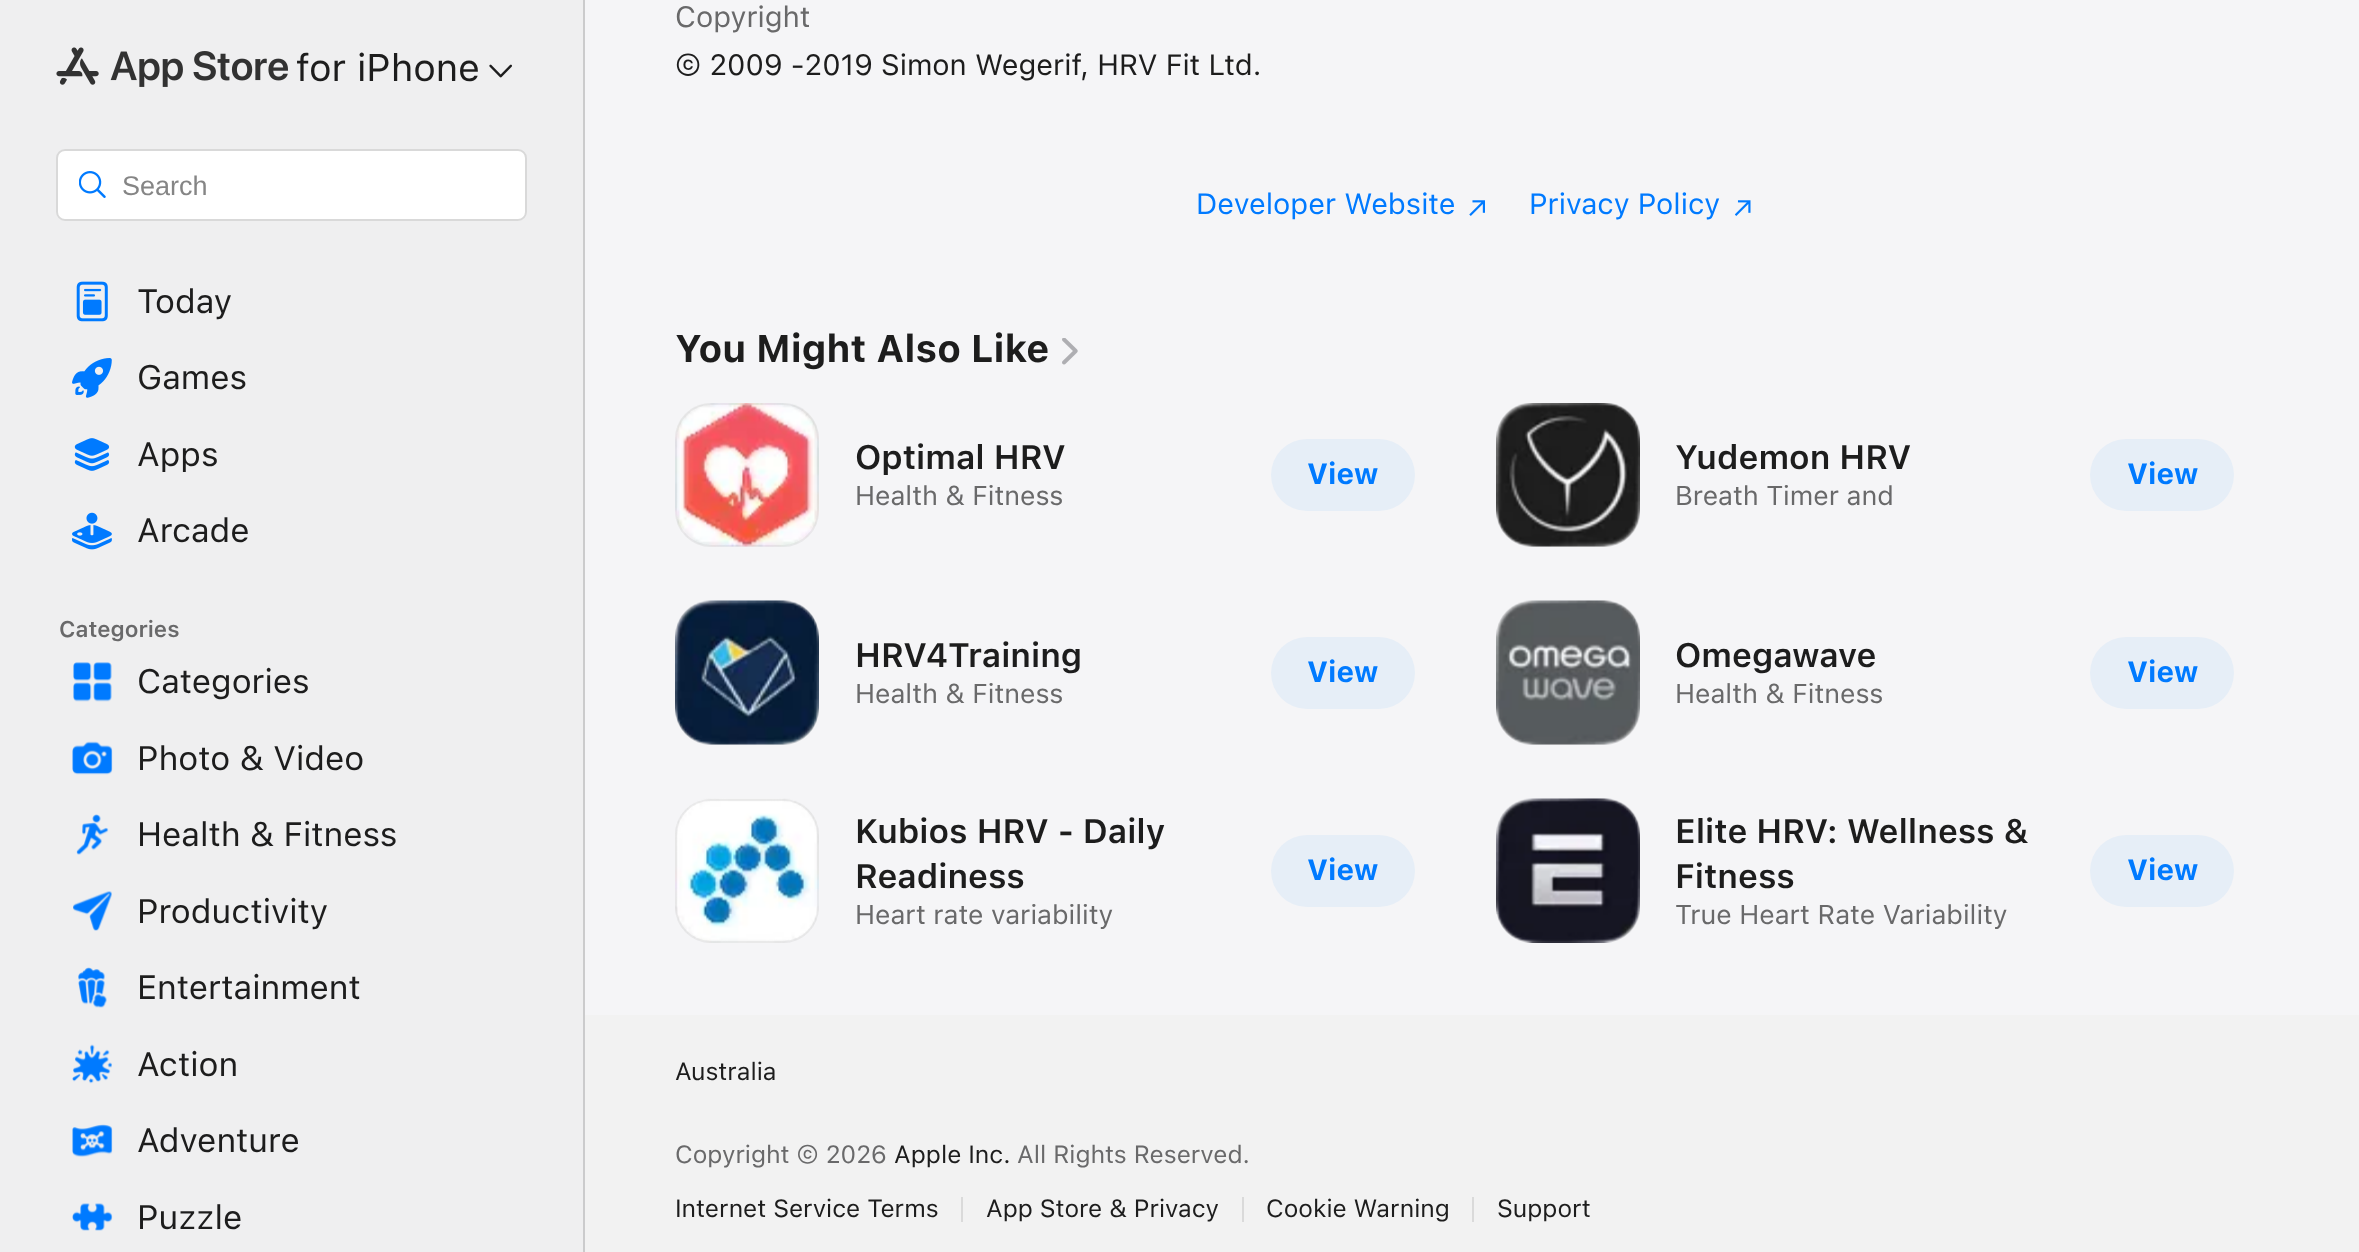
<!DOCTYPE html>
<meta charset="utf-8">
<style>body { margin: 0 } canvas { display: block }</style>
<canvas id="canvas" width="2359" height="1252"></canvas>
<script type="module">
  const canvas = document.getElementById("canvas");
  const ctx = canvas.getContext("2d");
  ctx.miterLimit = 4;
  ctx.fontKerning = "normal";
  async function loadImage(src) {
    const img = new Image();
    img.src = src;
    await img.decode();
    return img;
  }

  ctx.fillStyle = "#f5f5f7";
  ctx.fillRect(0, 0, 2359, 1252);
  ctx.fillStyle = "#efeff0";
  ctx.fillRect(0, 0, 583, 1252);
  ctx.fillStyle = "#cbcbcc";
  ctx.fillRect(583, 0, 2, 1252);
  ctx.drawImage(await loadImage("img1.png"), 56, 47, 232, 40);
  ctx.font = "38.25px SF";
  ctx.fillStyle = "#1d1d1d";
  ctx.fillText("for iPhone", 296, 81);
  ctx.drawImage(await loadImage("img2.png"), 489, 64, 23, 14);
  ctx.fillStyle = "#ffffff";
  ctx.beginPath();
  ctx.roundRect(56, 149, 471, 72, 9);
  ctx.fill();
  ctx.beginPath();
  ctx.roundRect(57, 150, 469, 70, 8);
  ctx.strokeStyle = "rgba(0, 0, 0, 0.15)";
  ctx.lineWidth = 2;
  ctx.stroke();
  ctx.drawImage(await loadImage("img3.png"), 79, 171, 27, 27);
  ctx.font = "27px Liberation Sans";
  ctx.fillStyle = "#858585";
  ctx.fillText("Search", 122, 195);
  ctx.drawImage(await loadImage("img4.png"), 76, 281, 32, 41);
  ctx.font = "33.75px SF";
  ctx.fillStyle = "#1d1d1d";
  ctx.fillText("Today", 137, 313);
  ctx.drawImage(await loadImage("img5.png"), 72, 358, 40, 40);
  ctx.fillText("Games", 137, 389);
  ctx.drawImage(await loadImage("img6.png"), 74, 438, 36, 33);
  ctx.fillText("Apps", 137, 466);
  ctx.drawImage(await loadImage("img7.png"), 72, 512, 40, 38);
  ctx.fillText("Arcade", 137, 542);
  ctx.font = "600 22.5px SF";
  ctx.fillStyle = "#69696a";
  ctx.fillText("Categories", 59, 637);
  ctx.drawImage(await loadImage("img8.png"), 73, 662, 39, 40);
  ctx.font = "33.75px SF";
  ctx.fillStyle = "#1d1d1d";
  ctx.fillText("Categories", 137, 693);
  ctx.drawImage(await loadImage("img9.png"), 72, 741, 41, 34);
  ctx.fillText("Photo & Video", 137, 770);
  ctx.drawImage(await loadImage("img10.png"), 76, 814, 33, 41);
  ctx.fillText("Health & Fitness", 137, 846);
  ctx.drawImage(await loadImage("img11.png"), 73, 891, 39, 40);
  ctx.fillText("Productivity", 137, 923);
  ctx.drawImage(await loadImage("img12.png"), 78, 967, 29, 41);
  ctx.fillText("Entertainment", 137, 999);
  ctx.drawImage(await loadImage("img13.png"), 72, 1044, 40, 40);
  ctx.fillText("Action", 137, 1076);
  ctx.drawImage(await loadImage("img14.png"), 72, 1124, 41, 33);
  ctx.fillText("Adventure", 137, 1152);
  ctx.drawImage(await loadImage("img15.png"), 72, 1203, 41, 28);
  ctx.fillText("Puzzle", 137, 1229);
  ctx.font = "29.25px SF";
  ctx.fillStyle = "#69696a";
  ctx.fillText("Copyright", 675, 27);
  ctx.fillStyle = "#1d1d1d";
  ctx.fillText("© 2009 -2019 Simon Wegerif, HRV Fit Ltd.", 675, 75);
  ctx.fillStyle = "#007aff";
  ctx.fillText("Developer Website", 1196, 214);
  ctx.drawImage(await loadImage("img16.png"), 1469, 200, 16, 16);
  ctx.fillText("Privacy Policy", 1529, 214);
  ctx.drawImage(await loadImage("img17.png"), 1735, 200, 16, 16);
  ctx.font = "bold 38.25px SF";
  ctx.fillStyle = "#1d1d1d";
  ctx.fillText("You Might Also Like", 675, 362);
  ctx.drawImage(await loadImage("img18.png"), 1062, 338, 16, 27);
  ctx.drawImage(await loadImage("img19.png"), 675, 403, 144, 144);
  ctx.beginPath();
  ctx.roundRect(676, 404, 142, 142, 35);
  ctx.strokeStyle = "rgba(128, 128, 128, 0.1)";
  ctx.stroke();
  ctx.font = "600 33.75px SF";
  ctx.fillText("Optimal HRV", 855, 469);
  ctx.font = "27px SF";
  ctx.fillStyle = "#69696a";
  ctx.fillText("Health & Fitness", 855, 505);
  ctx.fillStyle = "#e6eef7";
  ctx.beginPath();
  ctx.roundRect(1271, 439, 144, 72, 36);
  ctx.fill();
  ctx.font = "bold 29.25px SF";
  ctx.fillStyle = "#007aff";
  ctx.fillText("View", 1307, 484);
  ctx.drawImage(await loadImage("img20.png"), 1496, 403, 144, 144);
  ctx.beginPath();
  ctx.roundRect(1497, 404, 142, 142, 35);
  ctx.stroke();
  ctx.font = "600 33.75px SF";
  ctx.fillStyle = "#1d1d1d";
  ctx.fillText("Yudemon HRV", 1675, 469);
  ctx.font = "27px SF";
  ctx.fillStyle = "#69696a";
  ctx.fillText("Breath Timer and", 1675, 505);
  ctx.fillStyle = "#e6eef7";
  ctx.beginPath();
  ctx.roundRect(2090, 439, 144, 72, 36);
  ctx.fill();
  ctx.font = "bold 29.25px SF";
  ctx.fillStyle = "#007aff";
  ctx.fillText("View", 2127, 484);
  ctx.drawImage(await loadImage("img21.png"), 675, 600, 144, 145);
  ctx.beginPath();
  ctx.roundRect(676, 602, 142, 142, 35);
  ctx.stroke();
  ctx.font = "600 33.75px SF";
  ctx.fillStyle = "#1d1d1d";
  ctx.fillText("HRV4Training", 855, 667);
  ctx.font = "27px SF";
  ctx.fillStyle = "#69696a";
  ctx.fillText("Health & Fitness", 855, 703);
  ctx.fillStyle = "#e6eef7";
  ctx.beginPath();
  ctx.roundRect(1271, 637, 144, 72, 36);
  ctx.fill();
  ctx.font = "bold 29.25px SF";
  ctx.fillStyle = "#007aff";
  ctx.fillText("View", 1307, 682);
  ctx.drawImage(await loadImage("img22.png"), 1496, 600, 144, 145);
  ctx.beginPath();
  ctx.roundRect(1497, 602, 142, 142, 35);
  ctx.stroke();
  ctx.font = "600 33.75px SF";
  ctx.fillStyle = "#1d1d1d";
  ctx.fillText("Omegawave", 1675, 667);
  ctx.font = "27px SF";
  ctx.fillStyle = "#69696a";
  ctx.fillText("Health & Fitness", 1675, 703);
  ctx.fillStyle = "#e6eef7";
  ctx.beginPath();
  ctx.roundRect(2090, 637, 144, 72, 36);
  ctx.fill();
  ctx.font = "bold 29.25px SF";
  ctx.fillStyle = "#007aff";
  ctx.fillText("View", 2127, 682);
  ctx.drawImage(await loadImage("img23.png"), 675, 798, 144, 145);
  ctx.beginPath();
  ctx.roundRect(676, 800, 142, 142, 35);
  ctx.stroke();
  ctx.font = "600 33.75px SF";
  ctx.fillStyle = "#1d1d1d";
  ctx.fillText("Kubios HRV - Daily", 855, 843);
  ctx.fillText("Readiness", 855, 888);
  ctx.font = "27px SF";
  ctx.fillStyle = "#69696a";
  ctx.fillText("Heart rate variability", 855, 924);
  ctx.fillStyle = "#e6eef7";
  ctx.beginPath();
  ctx.roundRect(1271, 835, 144, 72, 36);
  ctx.fill();
  ctx.font = "bold 29.25px SF";
  ctx.fillStyle = "#007aff";
  ctx.fillText("View", 1307, 880);
  ctx.drawImage(await loadImage("img24.png"), 1496, 798, 144, 145);
  ctx.beginPath();
  ctx.roundRect(1497, 800, 142, 142, 35);
  ctx.stroke();
  ctx.font = "600 33.75px SF";
  ctx.fillStyle = "#1d1d1d";
  ctx.fillText("Elite HRV: Wellness &", 1675, 843);
  ctx.fillText("Fitness", 1675, 888);
  ctx.font = "27px SF";
  ctx.fillStyle = "#69696a";
  ctx.fillText("True Heart Rate Variability", 1675, 924);
  ctx.fillStyle = "#e6eef7";
  ctx.beginPath();
  ctx.roundRect(2090, 835, 144, 72, 36);
  ctx.fill();
  ctx.font = "bold 29.25px SF";
  ctx.fillStyle = "#007aff";
  ctx.fillText("View", 2127, 880);
  ctx.fillStyle = "#f2f2f2";
  ctx.fillRect(585, 1015, 1774, 237);
  ctx.font = "24.75px SF";
  ctx.fillStyle = "#1d1d1d";
  ctx.fillText("Australia", 675, 1080);
  ctx.fillStyle = "#69696a";
  ctx.fillText("Copyright © 2026", 675, 1163);
  ctx.fillStyle = "#1d1d1d";
  ctx.fillText("Apple Inc.", 894, 1163);
  ctx.fillStyle = "#69696a";
  ctx.fillText("All Rights Reserved.", 1017, 1163);
  ctx.fillStyle = "#1d1d1d";
  ctx.fillText("Internet Service Terms", 675, 1217);
  ctx.fillStyle = "#dadada";
  ctx.fillRect(961, 1197, 2, 25);
  ctx.fillStyle = "#1d1d1d";
  ctx.fillText("App Store & Privacy", 986, 1217);
  ctx.fillStyle = "#dadada";
  ctx.fillRect(1242, 1197, 2, 25);
  ctx.fillStyle = "#1d1d1d";
  ctx.fillText("Cookie Warning", 1266, 1217);
  ctx.fillStyle = "#dadada";
  ctx.fillRect(1472, 1197, 2, 25);
  ctx.fillStyle = "#1d1d1d";
  ctx.fillText("Support", 1497, 1217);
</script>
